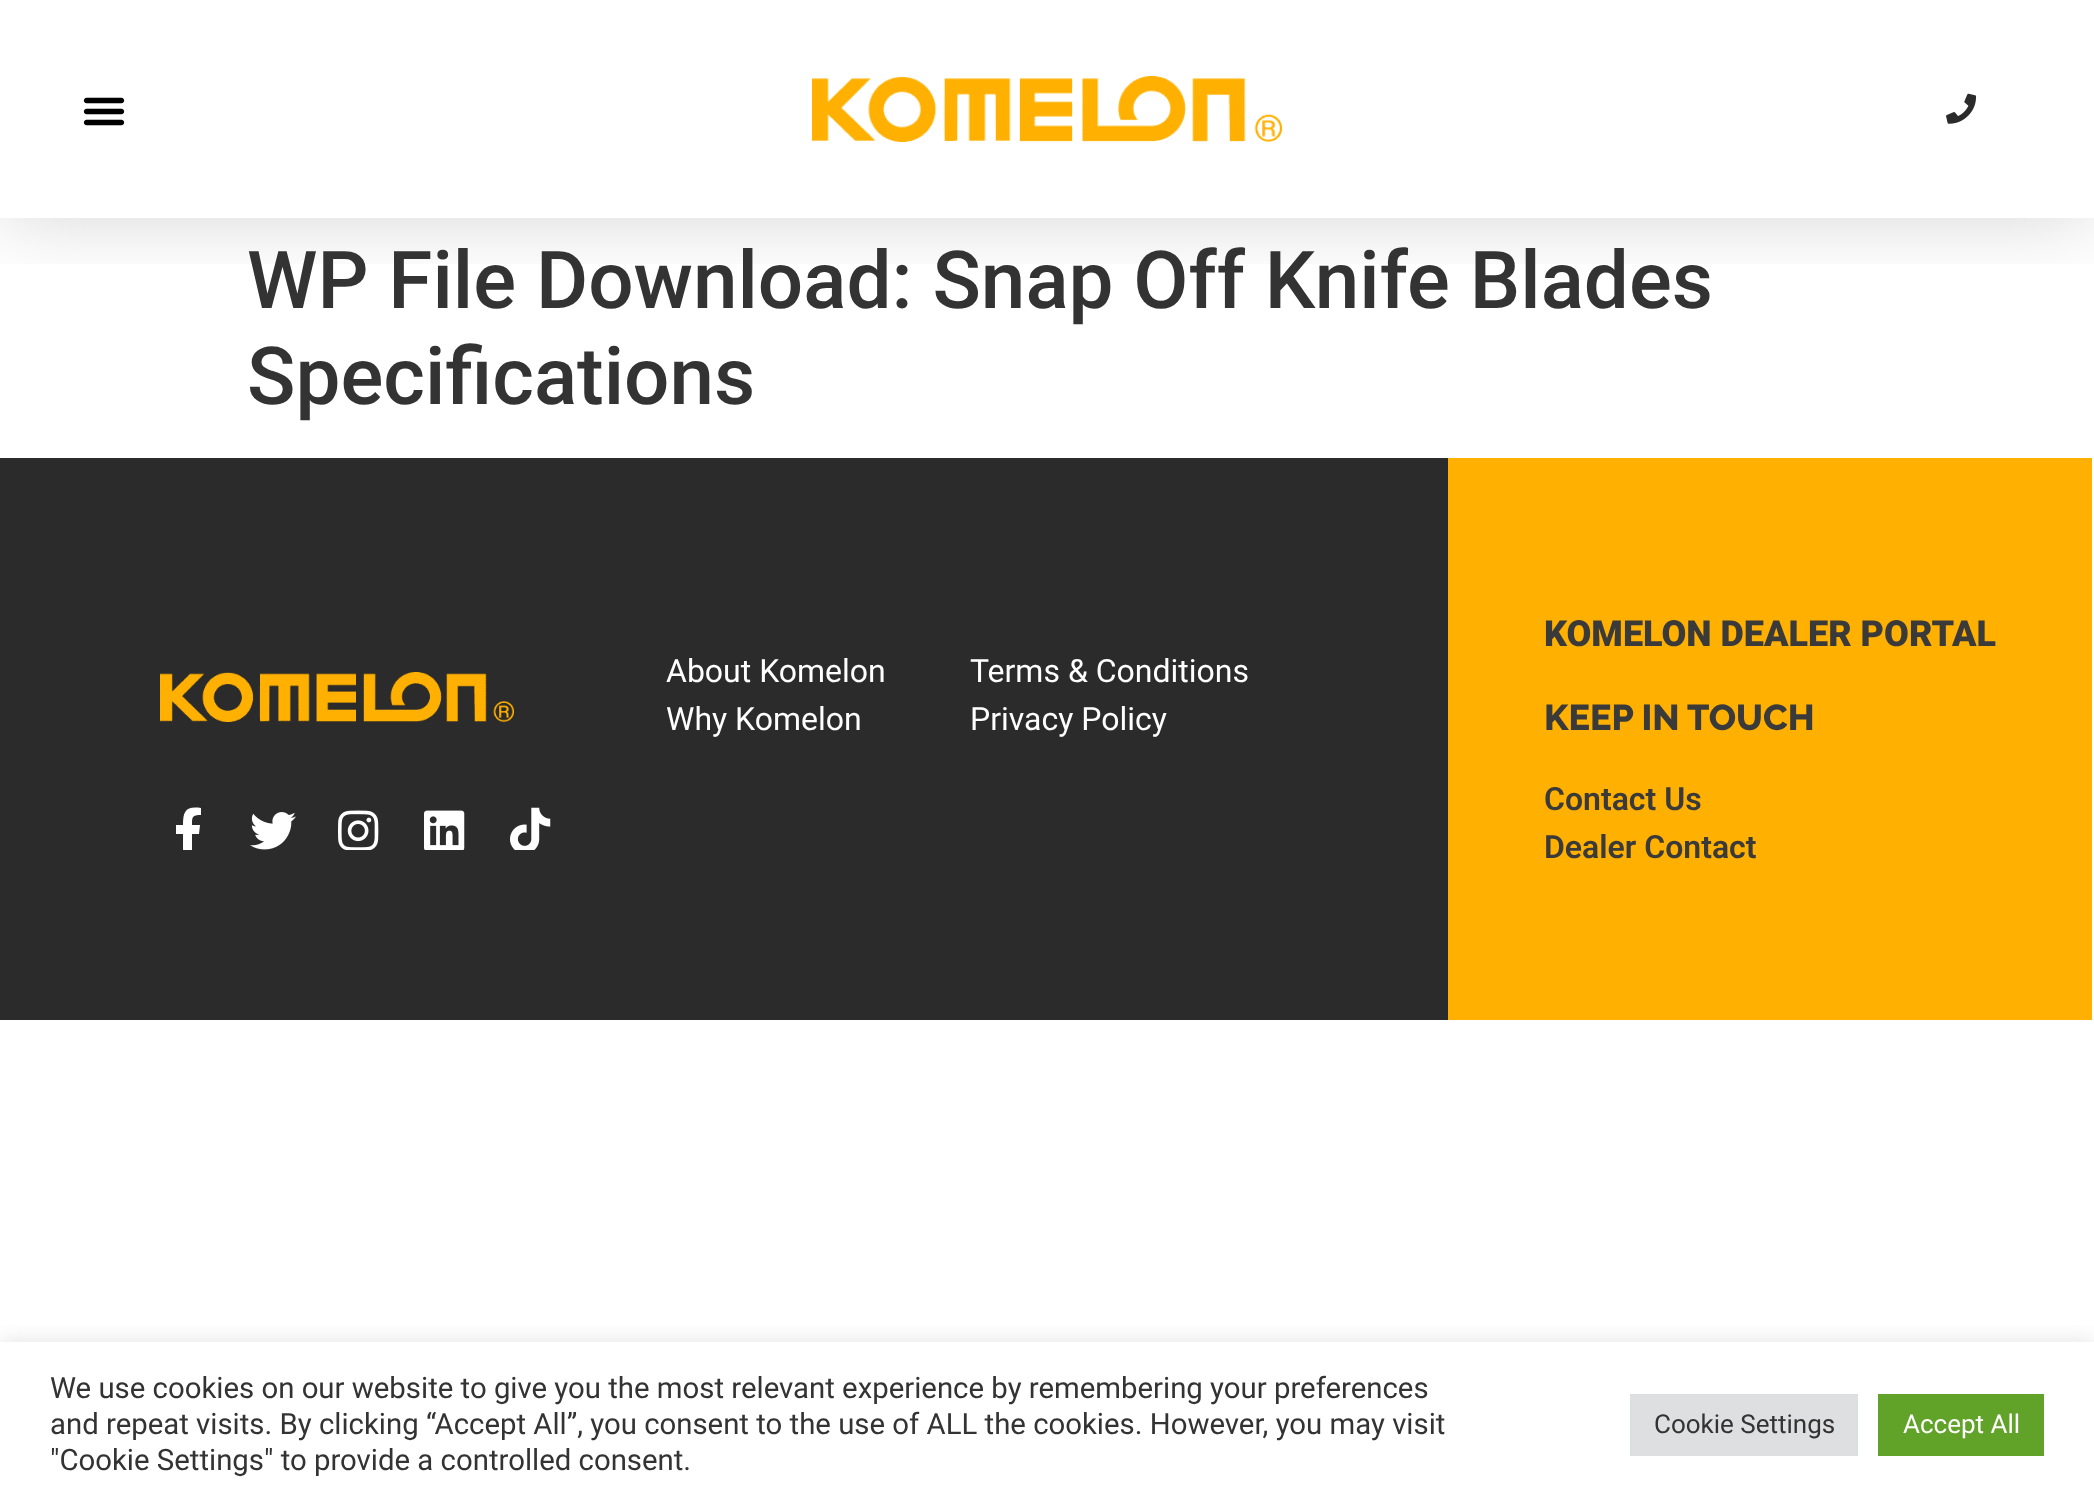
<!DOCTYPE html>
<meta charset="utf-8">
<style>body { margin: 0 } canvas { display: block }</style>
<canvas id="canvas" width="2094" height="1505"></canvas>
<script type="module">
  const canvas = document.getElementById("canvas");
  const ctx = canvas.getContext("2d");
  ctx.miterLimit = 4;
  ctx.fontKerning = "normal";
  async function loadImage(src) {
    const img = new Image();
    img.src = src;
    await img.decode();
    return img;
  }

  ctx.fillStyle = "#ffffff";
  ctx.fillRect(0, 0, 2094, 1505);
  ctx.save();
  ctx.beginPath();
  ctx.rect(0, 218, 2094, 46);
  ctx.clip();
  ctx.fillStyle = "rgba(0, 0, 0, 0.16)";
  ctx.filter = "blur(40px)";
  ctx.beginPath();
  ctx.rect(0, 0, 2094, 218);
  ctx.fill();
  ctx.filter = "none";
  ctx.restore();
  ctx.drawImage(await loadImage("img1.png"), 83, 97, 42, 29);
  ctx.drawImage(await loadImage("img2.png"), 812, 76, 470, 66);
  ctx.drawImage(await loadImage("img3.png"), 1946, 93, 31, 31);
  ctx.font = "500 80px Roboto";
  ctx.fillStyle = "#333333";
  ctx.fillText("WP File Download: Snap Off Knife Blades", 247, 308);
  ctx.fillText("Specifications", 247, 404);
  ctx.fillStyle = "#2b2b2b";
  ctx.fillRect(0, 458, 1448, 562);
  ctx.drawImage(await loadImage("img4.png"), 160, 672, 354, 50);
  ctx.font = "32px Roboto";
  ctx.fillStyle = "#ffffff";
  ctx.fillText("About Komelon", 666, 682);
  ctx.fillText("Why Komelon", 666, 730);
  ctx.fillText("Terms & Conditions", 970, 682);
  ctx.fillText("Privacy Policy", 970, 730);
  ctx.save();
  ctx.beginPath();
  ctx.rect(160, 804, 1214, 46);
  ctx.clip();
  ctx.beginPath();
  ctx.moveTo(199, 834);
  ctx.lineTo(192, 834);
  ctx.lineTo(192, 854);
  ctx.lineTo(183, 854);
  ctx.lineTo(183, 834);
  ctx.lineTo(176, 834);
  ctx.lineTo(176, 825);
  ctx.lineTo(183, 825);
  ctx.bezierCurveTo(183, 811, 186, 806, 201, 808);
  ctx.lineTo(201, 815);
  ctx.bezierCurveTo(192, 815, 192, 817, 192, 825);
  ctx.lineTo(200, 825);
  ctx.closePath();
  ctx.fill();
  ctx.restore();
  ctx.drawImage(await loadImage("img5.png"), 250, 812, 46, 38);
  ctx.drawImage(await loadImage("img6.png"), 338, 810, 41, 40);
  ctx.drawImage(await loadImage("img7.png"), 424, 810, 41, 40);
  ctx.drawImage(await loadImage("img8.png"), 510, 807, 41, 43);
  ctx.fillStyle = "#ffb000";
  ctx.fillRect(1448, 458, 644, 562);
  ctx.font = "900 36px Roboto";
  ctx.fillStyle = "#3a3a3a";
  ctx.fillText("KOMELON DEALER PORTAL", 1544, 646);
  ctx.font = "800 36px Raleway";
  ctx.fillText("KEEP IN TOUCH", 1544, 730);
  ctx.font = "600 32px Roboto";
  ctx.fillText("Contact Us", 1544, 810);
  ctx.fillText("Dealer Contact", 1544, 858);
  ctx.save();
  ctx.beginPath();
  ctx.rect(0, 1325, 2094, 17);
  ctx.clip();
  ctx.fillStyle = "rgba(172, 171, 171, 0.3)";
  ctx.filter = "blur(10px)";
  ctx.beginPath();
  ctx.rect(0, 1340, 2094, 164);
  ctx.fill();
  ctx.filter = "none";
  ctx.restore();
  ctx.font = "29.35px Roboto";
  ctx.fillStyle = "#333333";
  ctx.fillText("We use cookies on our website to give you the most relevant experience by remembering your preferences", 50, 1398);
  ctx.fillText("and repeat visits. By clicking “Accept All”, you consent to the use of ALL the cookies. However, you may visit", 50, 1434);
  ctx.fillText("\"Cookie Settings\" to provide a controlled consent.", 50, 1470);
  ctx.fillStyle = "#dedfe0";
  ctx.fillRect(1630, 1394, 228, 62);
  ctx.font = "26px Roboto";
  ctx.fillStyle = "#333333";
  ctx.fillText("Cookie Settings", 1654, 1433);
  ctx.fillStyle = "#61a229";
  ctx.fillRect(1878, 1394, 166, 62);
  ctx.fillStyle = "#ffffff";
  ctx.fillText("Accept All", 1903, 1433);
</script>
